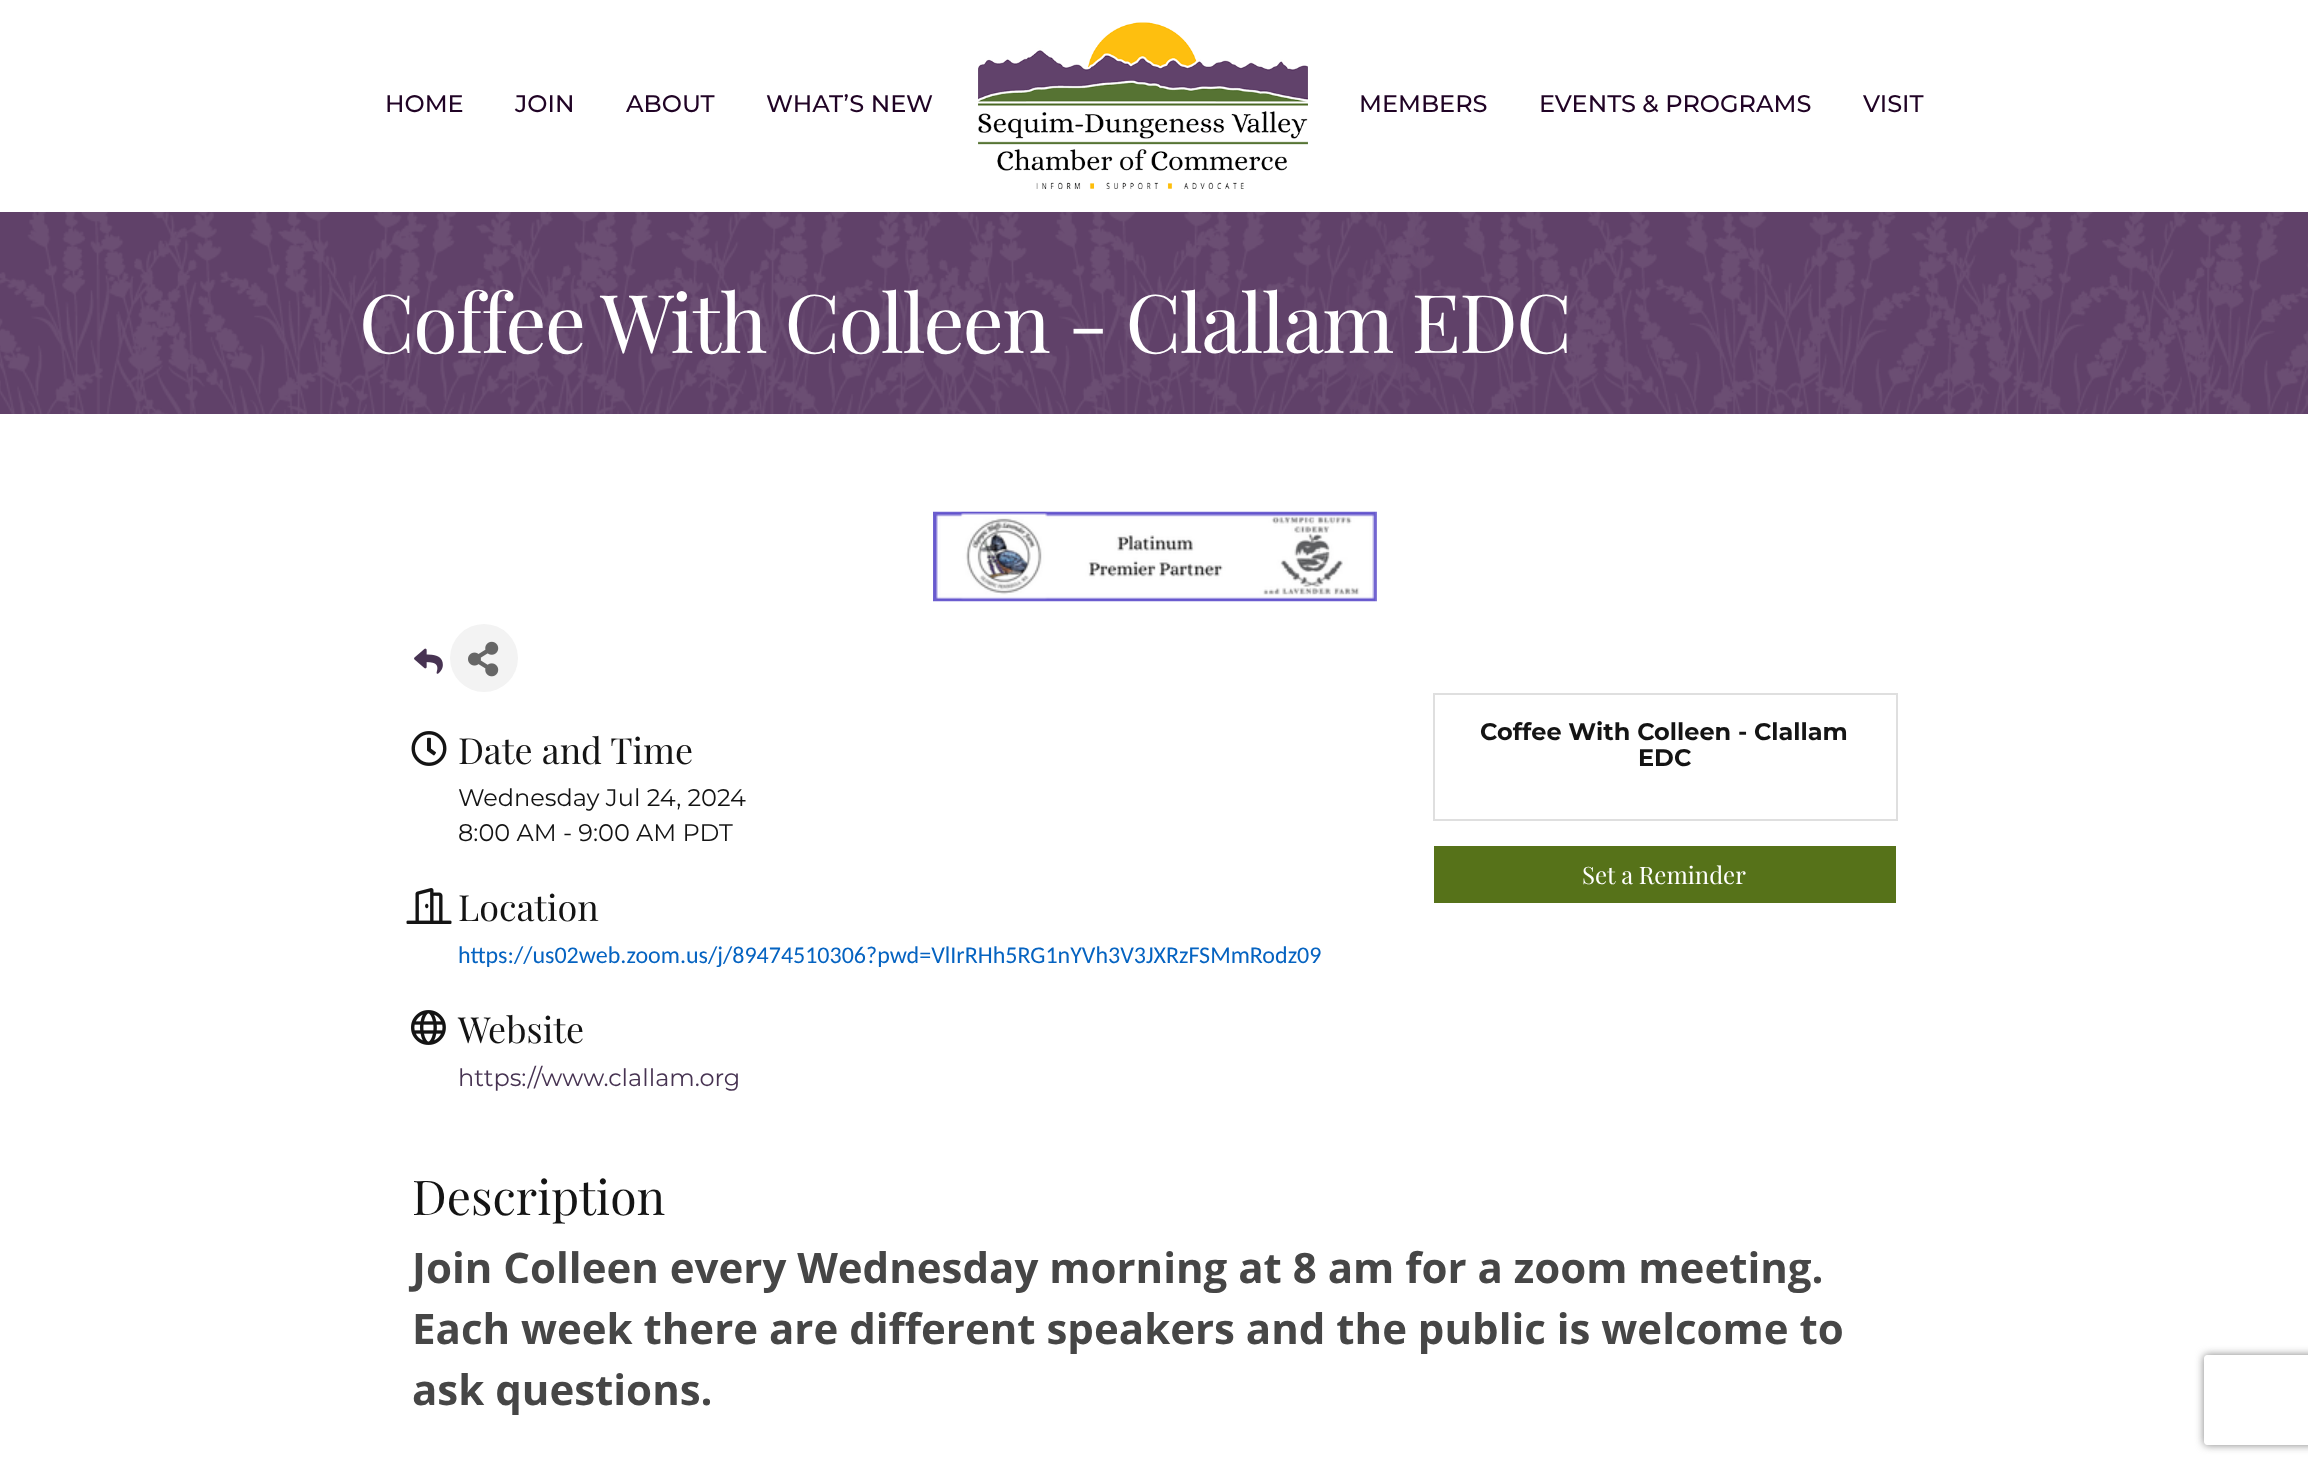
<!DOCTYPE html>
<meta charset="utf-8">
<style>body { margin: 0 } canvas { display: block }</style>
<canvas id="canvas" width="2308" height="1465"></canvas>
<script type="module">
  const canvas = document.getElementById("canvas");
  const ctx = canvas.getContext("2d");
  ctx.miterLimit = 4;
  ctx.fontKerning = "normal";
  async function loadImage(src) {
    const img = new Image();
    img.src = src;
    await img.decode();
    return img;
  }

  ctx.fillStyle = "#ffffff";
  ctx.fillRect(0, 0, 2308, 1465);
  ctx.font = "500 24px Montserrat";
  ctx.fillStyle = "#200325";
  ctx.fillText("HOME", 385, 112);
  ctx.fillText("JOIN", 515, 112);
  ctx.fillText("ABOUT", 626, 112);
  ctx.fillText("WHAT’S NEW", 766, 112);
  ctx.drawImage(await loadImage("img1.png"), 978, 22, 330, 167);
  ctx.fillText("MEMBERS", 1359, 112);
  ctx.fillText("EVENTS & PROGRAMS", 1539, 112);
  ctx.fillText("VISIT", 1863, 112);
  ctx.fillStyle = "#604169";
  ctx.fillRect(0, 212, 2308, 202);
  ctx.drawImage(await loadImage("img2.png"), 0, 212, 2308, 202);
  ctx.letterSpacing = "-1.5px";
  ctx.font = "81px Playfair Display";
  ctx.fillStyle = "#ffffff";
  ctx.fillText("Coffee With Colleen - Clallam EDC", 359, 353);
  ctx.drawImage(await loadImage("img3.png"), 933, 511, 444, 91);
  ctx.drawImage(await loadImage("img4.png"), 414, 648, 29, 26);
  ctx.fillStyle = "#f3f3f3";
  ctx.beginPath();
  ctx.arc(484, 658, 34, 0, Math.PI * 2);
  ctx.fill();
  ctx.drawImage(await loadImage("img5.png"), 468, 641, 31, 36);
  ctx.drawImage(await loadImage("img6.png"), 411, 731, 36, 35);
  ctx.letterSpacing = "0px";
  ctx.font = "36px Playfair Display";
  ctx.fillStyle = "#141414";
  ctx.fillText("Date and Time", 458, 764);
  ctx.font = "24px Montserrat";
  ctx.fillText("Wednesday Jul 24, 2024", 458, 806);
  ctx.fillText("8:00 AM - 9:00 AM PDT", 458, 841);
  ctx.drawImage(await loadImage("img7.png"), 406, 888, 46, 36);
  ctx.font = "36px Playfair Display";
  ctx.fillText("Location", 458, 921);
  ctx.font = "24px Carlito";
  ctx.fillStyle = "#0563c1";
  ctx.fillText("https://us02web.zoom.us/j/89474510306?pwd=VlIrRHh5RG1nYVh3V3JXRzFSMmRodz09", 458, 963);
  ctx.drawImage(await loadImage("img8.png"), 411, 1010, 35, 35);
  ctx.font = "36px Playfair Display";
  ctx.fillStyle = "#141414";
  ctx.fillText("Website", 458, 1043);
  ctx.font = "24px Montserrat";
  ctx.fillStyle = "#473352";
  ctx.fillText("https://www.clallam.org", 458, 1086);
  ctx.strokeStyle = "#dfdfdf";
  ctx.lineWidth = 2;
  ctx.strokeRect(1434, 694, 463, 126);
  ctx.font = "bold 24px Montserrat";
  ctx.fillStyle = "#141414";
  ctx.fillText("Coffee With Colleen - Clallam", 1480, 740);
  ctx.fillText("EDC", 1638, 766);
  ctx.fillStyle = "#567219";
  ctx.fillRect(1434, 846, 462, 57);
  ctx.font = "24px Playfair Display";
  ctx.fillStyle = "#ffffff";
  ctx.fillText("Set a Reminder", 1582, 884);
  ctx.font = "48px Playfair Display";
  ctx.fillStyle = "#141414";
  ctx.fillText("Description", 412, 1215);
  ctx.font = "bold 42px Open Sans";
  ctx.fillStyle = "#464646";
  ctx.fillText("Join Colleen every Wednesday morning at 8 am for a zoom meeting.", 412, 1283);
  ctx.fillText("Each week there are different speakers and the public is welcome to", 412, 1344);
  ctx.fillText("ask questions.", 412, 1405);
  ctx.save();
  ctx.beginPath();
  ctx.moveTo(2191, 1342);
  ctx.lineTo(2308, 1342);
  ctx.lineTo(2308, 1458);
  ctx.lineTo(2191, 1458);
  ctx.closePath();
  ctx.moveTo(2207, 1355);
  ctx.lineTo(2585, 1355);
  ctx.bezierCurveTo(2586.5, 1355, 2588, 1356.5, 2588, 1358);
  ctx.lineTo(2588, 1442);
  ctx.bezierCurveTo(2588, 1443.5, 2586.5, 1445, 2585, 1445);
  ctx.lineTo(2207, 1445);
  ctx.bezierCurveTo(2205.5, 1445, 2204, 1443.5, 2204, 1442);
  ctx.lineTo(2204, 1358);
  ctx.bezierCurveTo(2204, 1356.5, 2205.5, 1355, 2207, 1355);
  ctx.closePath();
  ctx.clip("evenodd");
  ctx.fillStyle = "#808080";
  ctx.filter = "blur(4px)";
  ctx.beginPath();
  ctx.roundRect(2204, 1355, 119, 90, 3);
  ctx.fill();
  ctx.filter = "none";
  ctx.restore();
</script>
